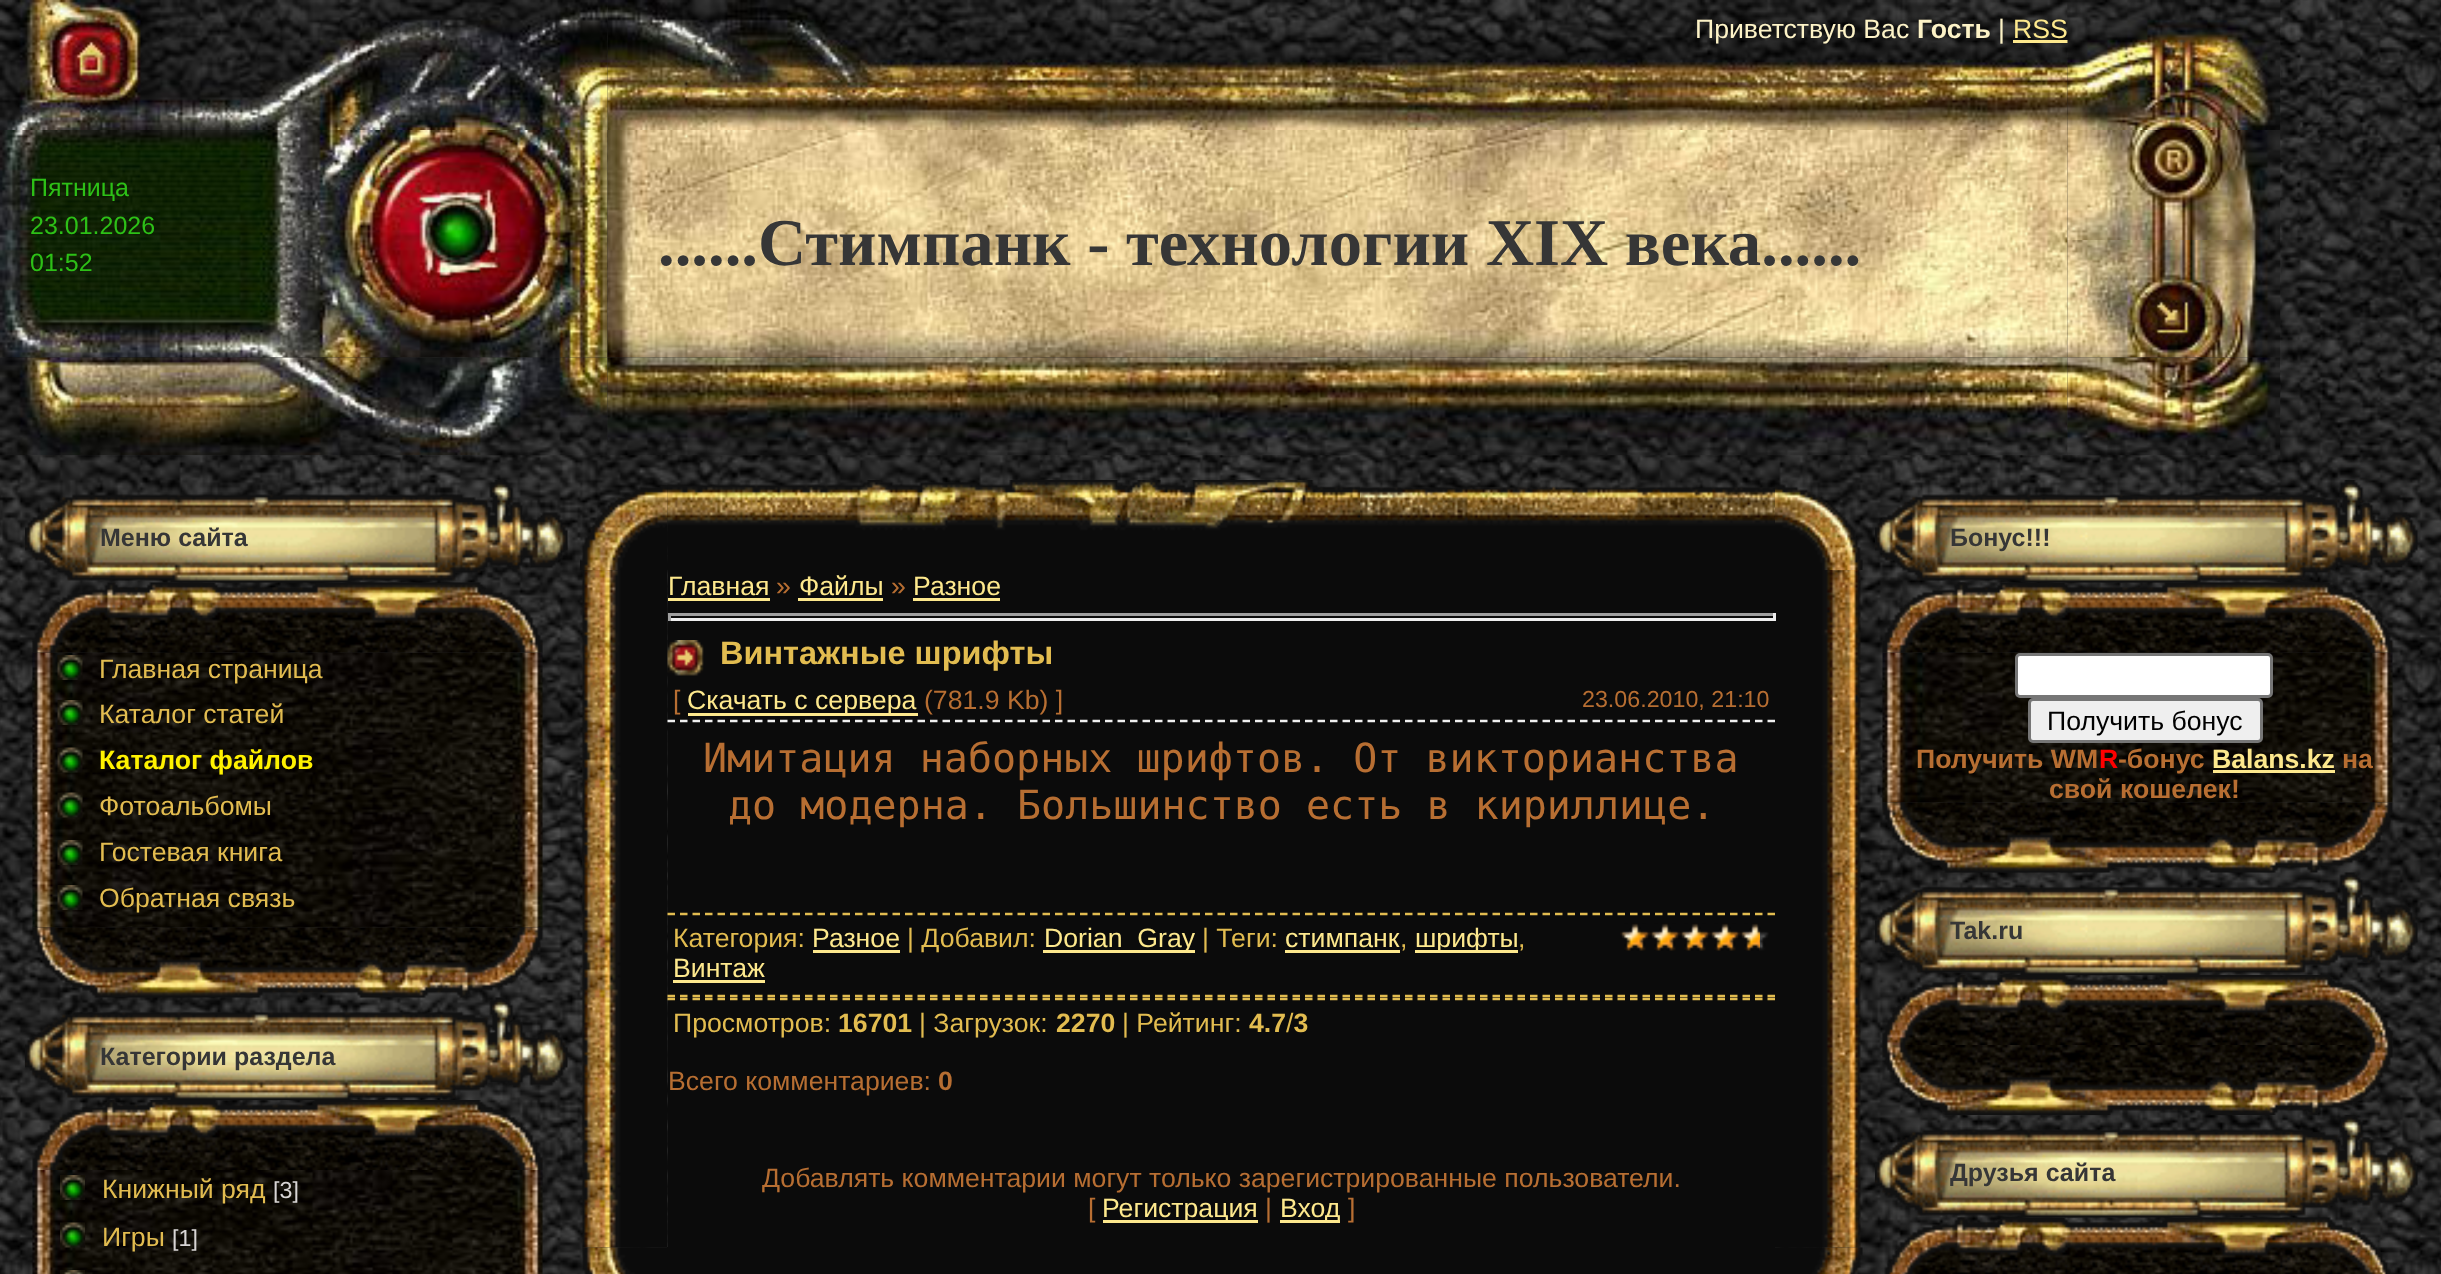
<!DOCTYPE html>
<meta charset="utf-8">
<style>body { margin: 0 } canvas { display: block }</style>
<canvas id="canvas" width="2441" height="1274"></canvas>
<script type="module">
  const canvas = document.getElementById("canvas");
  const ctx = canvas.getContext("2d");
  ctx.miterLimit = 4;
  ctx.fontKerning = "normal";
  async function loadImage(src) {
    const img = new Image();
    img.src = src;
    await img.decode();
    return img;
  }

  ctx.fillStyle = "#ffffff";
  ctx.fillRect(0, 0, 2441, 1274);
  ctx.drawImage(await loadImage("img1.png"), 0, 0, 2441, 1274);
  ctx.drawImage(await loadImage("img3.png"), 607, 0, 1461, 130);
  ctx.drawImage(await loadImage("img2.png"), 0, 0, 608, 130);
  ctx.font = "26.65px Liberation Sans";
  ctx.fillStyle = "#fdf3c7";
  ctx.fillText("Приветствую Вас", 1695, 38);
  ctx.font = "bold 26.65px Liberation Sans";
  ctx.fillText("Гость", 1917, 38);
  ctx.font = "26.65px Liberation Sans";
  ctx.fillText("|", 1998, 38);
  ctx.fillStyle = "#fde88d";
  ctx.fillText("RSS", 2013, 38);
  ctx.fillRect(2013, 40, 55, 3);
  ctx.drawImage(await loadImage("img4.png"), 2067, 0, 213, 130);
  ctx.drawImage(await loadImage("img5.png"), 0, 130, 608, 228);
  ctx.font = "25px Liberation Sans";
  ctx.fillStyle = "#2dc017";
  ctx.fillText("Пятница", 30, 196);
  ctx.fillText("23.01.2026", 30, 234);
  ctx.fillText("01:52", 30, 271);
  ctx.drawImage(await loadImage("img6.png"), 607, 130, 1461, 228);
  ctx.font = "bold 66.7px Liberation Serif";
  ctx.fillStyle = "#363636";
  ctx.fillText("......Стимпанк - технологии XIX века......", 658, 265);
  ctx.drawImage(await loadImage("img7.png"), 2067, 130, 213, 110);
  ctx.drawImage(await loadImage("img8.png"), 2067, 240, 213, 118);
  ctx.drawImage(await loadImage("img9.png"), 0, 357, 608, 98);
  ctx.drawImage(await loadImage("img10.png"), 607, 357, 1461, 98);
  ctx.drawImage(await loadImage("img11.png"), 2067, 357, 213, 98);
  ctx.drawImage(await loadImage("img12.png"), 25, 480, 543, 103);
  ctx.font = "bold 25px Liberation Sans";
  ctx.fillText("Меню сайта", 100, 546);
  ctx.drawImage(await loadImage("img14.png"), 32, 652, 511, 276);
  ctx.drawImage(await loadImage("img13.png"), 32, 582, 511, 71);
  ctx.drawImage(await loadImage("img15.png"), 57, 655, 26, 25);
  ctx.font = "26.65px Liberation Sans";
  ctx.fillStyle = "#e2bc50";
  ctx.fillText("Главная страница", 99, 678);
  ctx.drawImage(await loadImage("img16.png"), 57, 700, 26, 25);
  ctx.fillText("Каталог статей", 99, 723);
  ctx.drawImage(await loadImage("img17.png"), 57, 747, 26, 26);
  ctx.font = "bold 26.65px Liberation Sans";
  ctx.fillStyle = "#fff200";
  ctx.fillText("Каталог файлов", 99, 769);
  ctx.drawImage(await loadImage("img18.png"), 57, 792, 26, 26);
  ctx.font = "26.65px Liberation Sans";
  ctx.fillStyle = "#e2bc50";
  ctx.fillText("Фотоальбомы", 99, 815);
  ctx.drawImage(await loadImage("img19.png"), 57, 840, 26, 25);
  ctx.fillText("Гостевая книга", 99, 861);
  ctx.drawImage(await loadImage("img20.png"), 57, 885, 26, 25);
  ctx.fillText("Обратная связь", 99, 907);
  ctx.drawImage(await loadImage("img22.png"), 25, 997, 543, 103);
  ctx.drawImage(await loadImage("img21.png"), 32, 927, 512, 71);
  ctx.font = "bold 25px Liberation Sans";
  ctx.fillStyle = "#363636";
  ctx.fillText("Категории раздела", 100, 1065);
  ctx.drawImage(await loadImage("img23.png"), 32, 1100, 511, 70);
  ctx.drawImage(await loadImage("img24.png"), 32, 1170, 511, 104);
  ctx.drawImage(await loadImage("img25.png"), 60, 1175, 25, 25);
  ctx.font = "26.65px Liberation Sans";
  ctx.fillStyle = "#e2bc50";
  ctx.fillText("Книжный ряд", 102, 1198);
  ctx.font = "23.25px Liberation Sans";
  ctx.fillStyle = "#d8d5d5";
  ctx.fillText("[3]", 273, 1198);
  ctx.drawImage(await loadImage("img26.png"), 60, 1222, 25, 26);
  ctx.font = "26.65px Liberation Sans";
  ctx.fillStyle = "#e2bc50";
  ctx.fillText("Игры", 102, 1246);
  ctx.font = "23.25px Liberation Sans";
  ctx.fillStyle = "#d8d5d5";
  ctx.fillText("[1]", 172, 1246);
  ctx.drawImage(await loadImage("img27.png"), 60, 1270, 25, 4);
  ctx.drawImage(await loadImage("img29.png"), 667, 486, 1108, 84);
  ctx.drawImage(await loadImage("img28.png"), 580, 485, 88, 85);
  ctx.drawImage(await loadImage("img30.png"), 667, 480, 693, 75);
  ctx.drawImage(await loadImage("img31.png"), 1775, 484, 88, 86);
  ctx.drawImage(await loadImage("img32.png"), 581, 570, 87, 678);
  ctx.fillStyle = "#0b0b0b";
  ctx.fillRect(668, 570, 1107, 677);
  ctx.font = "26.65px Liberation Sans";
  ctx.fillStyle = "#fde88d";
  ctx.fillText("Главная", 668, 595);
  ctx.fillRect(668, 598, 102, 3);
  ctx.fillStyle = "#b76e32";
  ctx.fillText("»", 776, 595);
  ctx.fillStyle = "#fde88d";
  ctx.fillText("Файлы", 799, 595);
  ctx.fillRect(798, 598, 85, 3);
  ctx.fillStyle = "#b76e32";
  ctx.fillText("»", 891, 595);
  ctx.fillStyle = "#fde88d";
  ctx.fillText("Разное", 913, 595);
  ctx.fillRect(913, 598, 87, 3);
  ctx.fillStyle = "#9f9f9f";
  ctx.fillRect(668, 613, 1107, 3);
  ctx.drawImage(await loadImage("img36.png"), 1775, 570, 86, 678);
  ctx.fillStyle = "#eeeeee";
  ctx.fillRect(1773, 613, 3, 8);
  ctx.fillRect(668, 618, 1107, 3);
  ctx.fillStyle = "#9f9f9f";
  ctx.fillRect(668, 613, 3, 8);
  ctx.drawImage(await loadImage("img33.png"), 667, 640, 37, 36);
  ctx.font = "bold 32.5px Liberation Sans";
  ctx.fillStyle = "#e2bc50";
  ctx.fillText("Винтажные шрифты", 720, 664);
  ctx.font = "26.65px Liberation Sans";
  ctx.fillStyle = "#b76e32";
  ctx.fillText("[", 673, 709);
  ctx.fillStyle = "#fde88d";
  ctx.fillRect(688, 713, 230, 3);
  ctx.fillText("Скачать с сервера", 687, 709);
  ctx.fillStyle = "#b76e32";
  ctx.fillText("(781.9 Kb) ]", 924, 709);
  ctx.font = "23.25px Liberation Sans";
  ctx.fillText("23.06.2010, 21:10", 1582, 707);
  ctx.beginPath();
  ctx.moveTo(667.5, 721);
  ctx.lineTo(1775, 721);
  ctx.strokeStyle = "#efefef";
  ctx.lineWidth = 2.5;
  ctx.setLineDash([7.5, 5]);
  ctx.stroke();
  ctx.font = "40px DejaVu Sans Mono";
  ctx.fillText("Имитация наборных шрифтов. От викторианства", 703, 772);
  ctx.fillText("до модерна. Большинство есть в кириллице.", 728, 819);
  ctx.beginPath();
  ctx.moveTo(667.5, 914);
  ctx.lineTo(1775, 914);
  ctx.strokeStyle = "#e2bc50";
  ctx.stroke();
  ctx.beginPath();
  ctx.moveTo(667.5, 996);
  ctx.lineTo(1775, 996);
  ctx.stroke();
  ctx.font = "26.65px Liberation Sans";
  ctx.fillStyle = "#e2bc50";
  ctx.fillText("Категория:", 673, 947);
  ctx.fillStyle = "#fde88d";
  ctx.fillText("Разное", 812, 947);
  ctx.fillRect(813, 950, 87, 3);
  ctx.fillStyle = "#e2bc50";
  ctx.fillText("| Добавил:", 907, 947);
  ctx.fillStyle = "#fde88d";
  ctx.fillRect(1043, 950, 152, 3);
  ctx.fillText("Dorian_Gray", 1044, 947);
  ctx.fillStyle = "#e2bc50";
  ctx.fillText("| Теги:", 1202, 947);
  ctx.fillStyle = "#fde88d";
  ctx.fillText("стимпанк", 1285, 947);
  ctx.fillStyle = "#e2bc50";
  ctx.fillText(",", 1400, 947);
  ctx.fillStyle = "#fde88d";
  ctx.fillRect(1285, 950, 115, 3);
  ctx.fillRect(1415, 950, 103, 3);
  ctx.fillText("шрифты", 1415, 947);
  ctx.fillStyle = "#e2bc50";
  ctx.fillText(",", 1518, 947);
  ctx.drawImage(await loadImage("img34.png"), 1621, 924, 148, 27);
  ctx.drawImage(await loadImage("img35.png"), 1620, 923, 140, 28);
  ctx.fillStyle = "#fde88d";
  ctx.fillText("Винтаж", 673, 977);
  ctx.fillRect(673, 980, 92, 3);
  ctx.beginPath();
  ctx.moveTo(667.5, 999);
  ctx.lineTo(1775, 999);
  ctx.stroke();
  ctx.fillStyle = "#e2bc50";
  ctx.fillText("Просмотров:", 673, 1032);
  ctx.font = "bold 26.65px Liberation Sans";
  ctx.fillText("16701", 838, 1032);
  ctx.font = "26.65px Liberation Sans";
  ctx.fillText("| Загрузок:", 919, 1032);
  ctx.font = "bold 26.65px Liberation Sans";
  ctx.fillText("2270", 1056, 1032);
  ctx.font = "26.65px Liberation Sans";
  ctx.fillText("| Рейтинг:", 1122, 1032);
  ctx.font = "bold 26.65px Liberation Sans";
  ctx.fillText("4.7 3", 1249, 1032);
  ctx.font = "26.65px Liberation Sans";
  ctx.fillText("/", 1286, 1032);
  ctx.fillStyle = "#b76e32";
  ctx.fillText("Всего комментариев:", 668, 1090);
  ctx.font = "bold 26.65px Liberation Sans";
  ctx.fillText("0", 938, 1090);
  ctx.font = "26.65px Liberation Sans";
  ctx.fillText("Добавлять комментарии могут только зарегистрированные пользователи.", 762, 1187);
  ctx.fillText("[", 1088, 1217);
  ctx.fillStyle = "#fde88d";
  ctx.fillRect(1103, 1220, 155, 3);
  ctx.fillText("Регистрация", 1102, 1217);
  ctx.fillStyle = "#b76e32";
  ctx.fillText("|", 1265, 1217);
  ctx.fillStyle = "#fde88d";
  ctx.fillRect(1280, 1220, 60, 3);
  ctx.fillText("Вход", 1280, 1217);
  ctx.fillStyle = "#b76e32";
  ctx.fillText("]", 1348, 1217);
  ctx.drawImage(await loadImage("img37.png"), 582, 1247, 85, 27);
  ctx.fillStyle = "#0b0b0b";
  ctx.fillRect(667, 1247, 1108, 27);
  ctx.drawImage(await loadImage("img38.png"), 1775, 1247, 88, 27);
  ctx.drawImage(await loadImage("img39.png"), 1875, 480, 543, 103);
  ctx.font = "bold 25px Liberation Sans";
  ctx.fillStyle = "#363636";
  ctx.fillText("Бонус!!!", 1950, 546);
  ctx.drawImage(await loadImage("img41.png"), 1882, 652, 511, 151);
  ctx.drawImage(await loadImage("img40.png"), 1882, 582, 512, 71);
  ctx.fillStyle = "#ffffff";
  ctx.beginPath();
  ctx.roundRect(2016.5, 654.5, 255, 42, 3.5);
  ctx.fill();
  ctx.strokeStyle = "#767676";
  ctx.lineWidth = 3;
  ctx.setLineDash([]);
  ctx.stroke();
  ctx.fillStyle = "#efefef";
  ctx.beginPath();
  ctx.roundRect(2029.5, 699.5, 232, 42, 3.5);
  ctx.fill();
  ctx.stroke();
  ctx.font = "26.65px Liberation Sans";
  ctx.fillStyle = "#000000";
  ctx.fillText("Получить бонус", 2047, 730);
  ctx.font = "bold 26.65px Liberation Sans";
  ctx.fillStyle = "#b76e32";
  ctx.fillText("Получить WM", 1916, 768);
  ctx.fillStyle = "#ff0000";
  ctx.fillText("R", 2099, 768);
  ctx.fillStyle = "#b76e32";
  ctx.fillText("-бонус", 2118, 768);
  ctx.fillStyle = "#fde88d";
  ctx.fillText("Balans.kz", 2212, 768);
  ctx.fillRect(2213, 770, 122, 3);
  ctx.fillStyle = "#b76e32";
  ctx.fillText("на", 2342, 768);
  ctx.fillText("свой кошелек!", 2049, 798);
  ctx.drawImage(await loadImage("img43.png"), 1875, 872, 543, 103);
  ctx.drawImage(await loadImage("img42.png"), 1882, 802, 512, 71);
  ctx.font = "bold 25px Liberation Sans";
  ctx.fillStyle = "#363636";
  ctx.fillText("Tak.ru", 1950, 939);
  ctx.drawImage(await loadImage("img44.png"), 1882, 975, 511, 70);
  ctx.drawImage(await loadImage("img45.png"), 1882, 1045, 511, 70);
  ctx.drawImage(await loadImage("img46.png"), 1875, 1115, 543, 103);
  ctx.fillText("Друзья сайта", 1950, 1181);
  ctx.drawImage(await loadImage("img47.png"), 1884, 1217, 507, 57);
</script>
